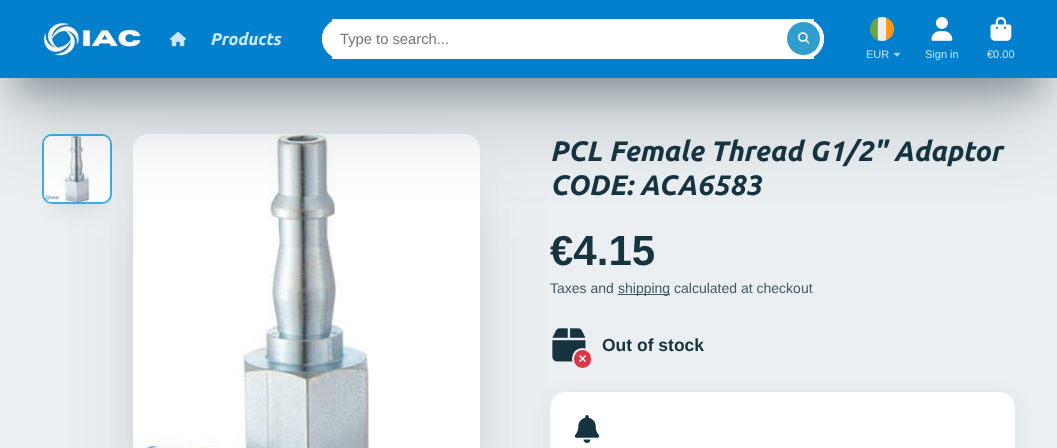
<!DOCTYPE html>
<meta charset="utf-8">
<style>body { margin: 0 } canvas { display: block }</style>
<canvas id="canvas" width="1057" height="448"></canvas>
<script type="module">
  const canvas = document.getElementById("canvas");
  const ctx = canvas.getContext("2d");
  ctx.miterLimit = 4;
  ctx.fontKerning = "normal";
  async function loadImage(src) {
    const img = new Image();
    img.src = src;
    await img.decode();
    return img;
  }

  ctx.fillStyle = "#ebeff1";
  ctx.fillRect(0, 0, 1057, 448);
  ctx.save();
  ctx.beginPath();
  ctx.rect(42, 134, 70, 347);
  ctx.clip();
  ctx.fillStyle = "rgba(15, 36, 45, 0.3)";
  ctx.filter = "blur(14px)";
  ctx.beginPath();
  ctx.rect(56, 155, 42, 42);
  ctx.fill();
  ctx.filter = "none";
  ctx.restore();
  ctx.beginPath();
  ctx.roundRect(43, 135, 68, 68, 9);
  ctx.strokeStyle = "#3eafe1";
  ctx.lineWidth = 2;
  ctx.stroke();
  ctx.drawImage(await loadImage("img9.png"), 44, 136, 66, 66);
  ctx.fillStyle = "rgba(15, 36, 45, 0.3)";
  ctx.filter = "blur(26px)";
  ctx.beginPath();
  ctx.rect(159, 187, 295, 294);
  ctx.fill();
  ctx.filter = "none";
  ctx.fillStyle = "rgba(15, 36, 45, 0.1)";
  ctx.filter = "blur(44px)";
  ctx.beginPath();
  ctx.rect(151, 195, 312, 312);
  ctx.fill();
  ctx.filter = "none";
  ctx.drawImage(await loadImage("img8.png"), 133, 134, 347, 314);
  ctx.fillStyle = "rgba(15, 36, 45, 0.4)";
  ctx.filter = "blur(19px)";
  ctx.beginPath();
  ctx.rect(14, 40, 1029, 50);
  ctx.fill();
  ctx.filter = "none";
  ctx.fillStyle = "rgba(15, 36, 45, 0.3)";
  ctx.filter = "blur(44px)";
  ctx.beginPath();
  ctx.rect(14, 58, 1029, 50);
  ctx.fill();
  ctx.filter = "none";
  ctx.fillStyle = "#0280cd";
  ctx.fillRect(0, 0, 1057, 78);
  ctx.drawImage(await loadImage("img1.png"), 42, 14, 100, 48);
  ctx.drawImage(await loadImage("img2.png"), 170, 32, 16, 15);
  ctx.font = "italic bold 17px Ubuntu";
  ctx.fillStyle = "#cce6f5";
  ctx.fillText("Products", 210, 45);
  ctx.fillStyle = "#ffffff";
  ctx.beginPath();
  ctx.roundRect(322, 19, 502, 40, 20);
  ctx.fill();
  ctx.fillRect(332, 19, 482, 40);
  ctx.beginPath();
  ctx.roundRect(322, 19, 502, 39, 19.5);
  ctx.fill();
  ctx.font = "14.75px Liberation Sans";
  ctx.fillStyle = "#757575";
  ctx.fillText("Type to search...", 340, 44);
  ctx.fillStyle = "#2f9ecf";
  ctx.beginPath();
  ctx.arc(803.5, 38.5, 16.5, 0, Math.PI * 2);
  ctx.fill();
  ctx.drawImage(await loadImage("img3.png"), 798, 32, 11, 12);
  ctx.drawImage(await loadImage("img4.png"), 870, 17, 24, 24);
  ctx.font = "11px Liberation Sans";
  ctx.fillStyle = "#cce6f5";
  ctx.fillText("EUR", 866, 58);
  ctx.drawImage(await loadImage("img5.png"), 893, 52, 8, 5);
  ctx.drawImage(await loadImage("img6.png"), 931, 17, 22, 24);
  ctx.fillText("Sign in", 925, 58);
  ctx.drawImage(await loadImage("img7.png"), 990, 17, 22, 24);
  ctx.fillText("€0.00", 987, 58);
  ctx.font = "italic bold 28.2px Ubuntu";
  ctx.fillStyle = "#163340";
  ctx.fillText("PCL Female Thread G1/2\" Adaptor", 550, 161);
  ctx.fillText("CODE: ACA6583", 550, 195);
  ctx.font = "bold 42px Liberation Sans";
  ctx.fillText("€4.15", 550, 265);
  ctx.font = "14px Liberation Sans";
  ctx.fillStyle = "#415963";
  ctx.fillText("Taxes and", 550, 293);
  ctx.fillRect(618, 294, 52, 1);
  ctx.fillText("shipping calculated at checkout", 618, 293);
  ctx.drawImage(await loadImage("img10.png"), 552, 328, 34, 34);
  ctx.fillStyle = "#dc3545";
  ctx.beginPath();
  ctx.roundRect(573, 349, 19, 20, 9.5);
  ctx.fill();
  ctx.strokeStyle = "#ededed";
  ctx.stroke();
  ctx.drawImage(await loadImage("img11.png"), 579, 355, 7, 7);
  ctx.font = "bold 17.5px Liberation Sans";
  ctx.fillStyle = "#163340";
  ctx.fillText("Out of stock", 602, 351);
  ctx.fillStyle = "rgba(19, 63, 82, 0.07)";
  ctx.filter = "blur(10px)";
  ctx.beginPath();
  ctx.roundRect(550, 396, 465, 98, 16);
  ctx.fill();
  ctx.filter = "none";
  ctx.fillStyle = "#ffffff";
  ctx.beginPath();
  ctx.roundRect(550, 392, 465, 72, 16);
  ctx.fill();
  ctx.drawImage(await loadImage("img12.png"), 574, 415, 26, 28);
</script>
